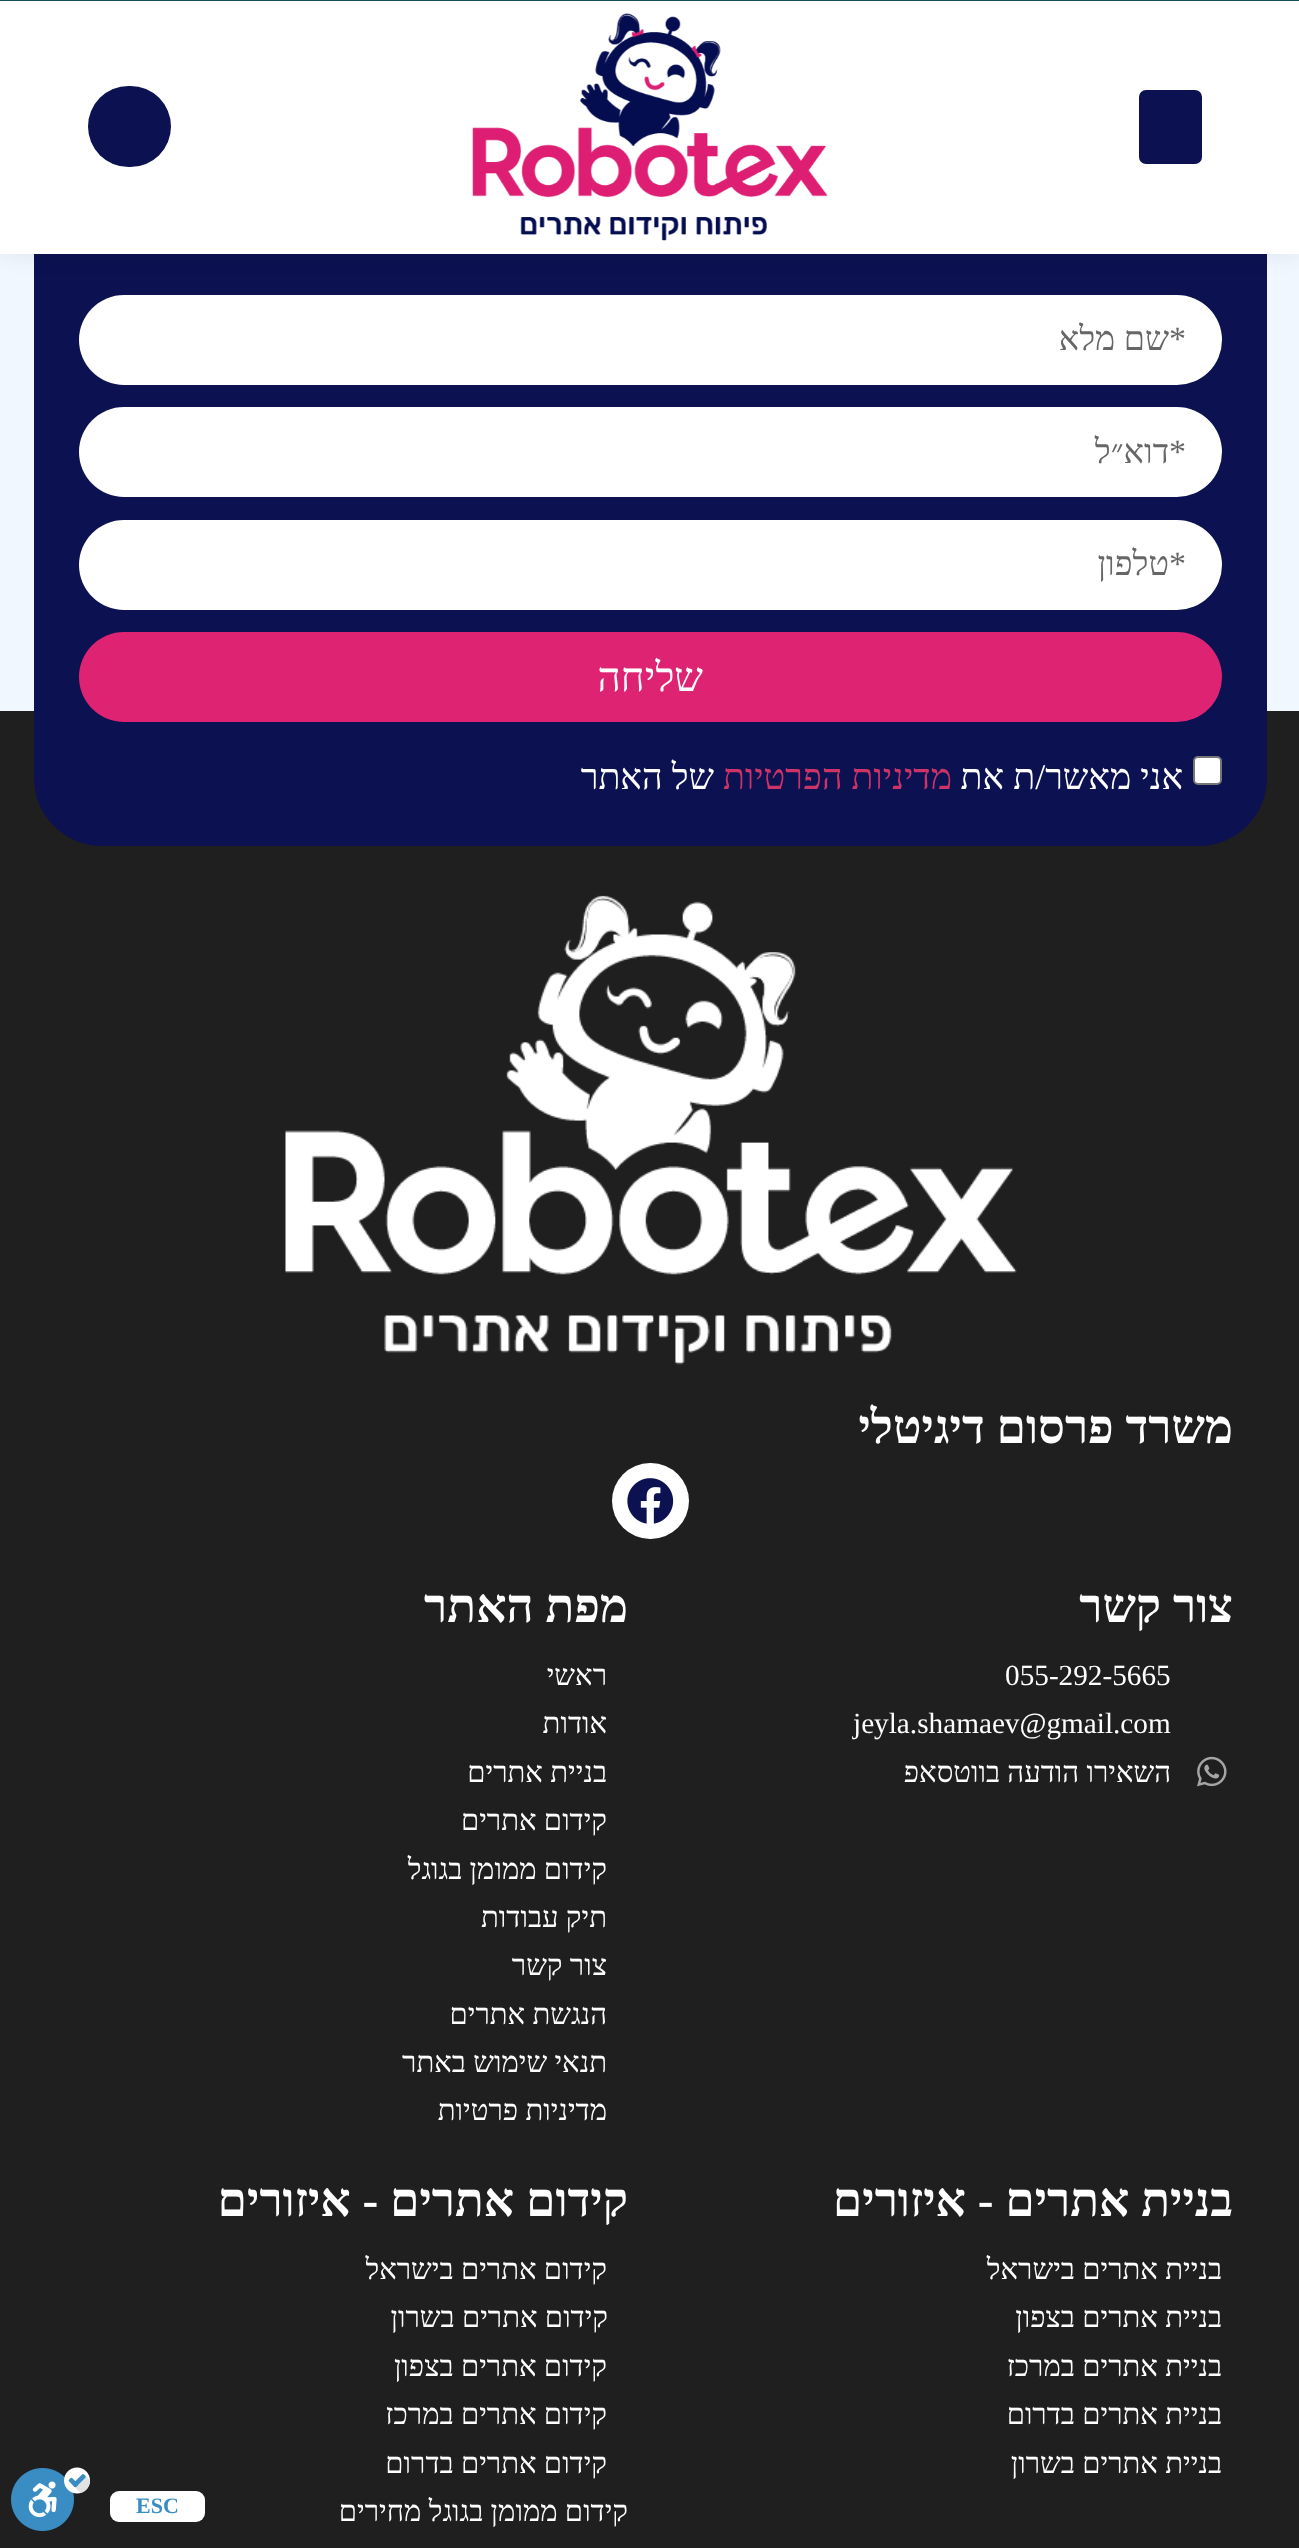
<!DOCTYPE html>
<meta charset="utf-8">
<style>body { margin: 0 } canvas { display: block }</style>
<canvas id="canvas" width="1299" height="2548"></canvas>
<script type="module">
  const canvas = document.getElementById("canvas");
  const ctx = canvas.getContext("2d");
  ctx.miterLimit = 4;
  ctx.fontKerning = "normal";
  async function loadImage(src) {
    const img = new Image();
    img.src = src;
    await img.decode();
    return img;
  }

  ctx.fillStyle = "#f1f7ff";
  ctx.fillRect(0, 0, 1299, 2548);
  ctx.fillStyle = "#1f1f1f";
  ctx.fillRect(0, 711, 1299, 1837);
  ctx.fillStyle = "#0c1152";
  ctx.beginPath();
  ctx.roundRect(34, 137, 1233, 709, 68);
  ctx.fill();
  ctx.fillStyle = "rgba(0, 0, 0, 0.08)";
  ctx.filter = "blur(11px)";
  ctx.beginPath();
  ctx.rect(0, 0, 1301, 254);
  ctx.fill();
  ctx.filter = "none";
  ctx.fillStyle = "#ffffff";
  ctx.fillRect(0, 1, 1299, 253);
  ctx.fillStyle = "#0c1152";
  ctx.beginPath();
  ctx.roundRect(1139, 90, 63, 74, 7);
  ctx.fill();
  ctx.drawImage(await loadImage("img1.png"), 472, 13, 356, 228);
  ctx.beginPath();
  ctx.roundRect(88, 86, 83, 81, 40.5);
  ctx.fill();
  ctx.fillStyle = "#ffffff";
  ctx.beginPath();
  ctx.roundRect(79, 295, 1143, 90, 45);
  ctx.fill();
  ctx.direction = "rtl";
  ctx.font = "34px Liberation Serif";
  ctx.fillStyle = "#666666";
  ctx.fillText("*שם מלא", 1186, 350);
  ctx.fillStyle = "#ffffff";
  ctx.beginPath();
  ctx.roundRect(79, 407, 1143, 90, 45);
  ctx.fill();
  ctx.fillStyle = "#666666";
  ctx.fillText("*דוא״ל", 1186, 463);
  ctx.fillStyle = "#ffffff";
  ctx.beginPath();
  ctx.roundRect(79, 520, 1143, 90, 45);
  ctx.fill();
  ctx.fillStyle = "#666666";
  ctx.fillText("*טלפון", 1186, 575);
  ctx.fillStyle = "#de2373";
  ctx.beginPath();
  ctx.roundRect(79, 632, 1143, 90, 45);
  ctx.fill();
  ctx.font = "40.5px Liberation Serif";
  ctx.fillStyle = "#ffffff";
  ctx.fillText("שליחה", 703, 691);
  ctx.beginPath();
  ctx.roundRect(1194, 757, 27, 27, 4);
  ctx.fill();
  ctx.strokeStyle = "#767676";
  ctx.lineWidth = 2;
  ctx.stroke();
  ctx.font = "36px Liberation Serif";
  ctx.fillText("אני מאשר/ת את", 1183, 789);
  ctx.fillStyle = "#cc3366";
  ctx.fillText("מדיניות הפרטיות", 952, 789);
  ctx.fillStyle = "#ffffff";
  ctx.fillText("של האתר", 714, 789);
  ctx.drawImage(await loadImage("img2.png"), 285, 895, 732, 470);
  ctx.font = "bold 47.25px Liberation Serif";
  ctx.fillText("משרד פרסום דיגיטלי", 1233, 1443);
  ctx.beginPath();
  ctx.roundRect(612, 1463, 77, 76, 38);
  ctx.fill();
  ctx.drawImage(await loadImage("img3.png"), 627, 1478, 47, 46);
  ctx.fillText("צור קשר", 1233, 1622);
  ctx.direction = "ltr";
  ctx.font = "29.25px Liberation Serif";
  ctx.fillText("055-292-5665", 1005, 1685);
  ctx.fillText("jeyla.shamaev@gmail.com", 853, 1733);
  ctx.drawImage(await loadImage("img4.png"), 1197, 1756, 30, 31);
  ctx.direction = "rtl";
  ctx.fillText("השאירו הודעה בווטסאפ", 1171, 1782);
  ctx.font = "bold 47.25px Liberation Serif";
  ctx.fillText("מפת האתר", 628, 1622);
  ctx.font = "29.25px Liberation Serif";
  ctx.fillText("ראשי", 607, 1685);
  ctx.fillText("אודות", 607, 1733);
  ctx.fillText("בניית אתרים", 607, 1782);
  ctx.fillText("קידום אתרים", 607, 1830);
  ctx.fillText("קידום ממומן בגוגל", 607, 1879);
  ctx.fillText("תיק עבודות", 607, 1927);
  ctx.fillText("צור קשר", 607, 1975);
  ctx.fillText("הנגשת אתרים", 607, 2024);
  ctx.fillText("תנאי שימוש באתר", 607, 2072);
  ctx.fillText("מדיניות פרטיות", 607, 2120);
  ctx.font = "bold 47.25px Liberation Serif";
  ctx.fillText("בניית אתרים - איזורים", 1233, 2216);
  ctx.font = "29.25px Liberation Serif";
  ctx.fillText("בניית אתרים בישראל", 1222, 2279);
  ctx.fillText("בניית אתרים בצפון", 1222, 2327);
  ctx.fillText("בניית אתרים במרכז", 1222, 2376);
  ctx.fillText("בניית אתרים בדרום", 1222, 2424);
  ctx.fillText("בניית אתרים בשרון", 1222, 2473);
  ctx.font = "bold 47.25px Liberation Serif";
  ctx.fillText("קידום אתרים - איזורים", 628, 2216);
  ctx.font = "29.25px Liberation Serif";
  ctx.fillText("קידום אתרים בישראל", 607, 2279);
  ctx.fillText("קידום אתרים בשרון", 608, 2327);
  ctx.fillText("קידום אתרים בצפון", 607, 2376);
  ctx.fillText("קידום אתרים במרכז", 607, 2424);
  ctx.fillText("קידום אתרים בדרום", 607, 2473);
  ctx.fillText("קידום ממומן בגוגל מחירים", 628, 2521);
  ctx.fillStyle = "#15495f";
  ctx.fillRect(0, 0, 1299, 1);
  ctx.fillStyle = "#ffffff";
  ctx.beginPath();
  ctx.roundRect(110, 2491, 95, 31, 9);
  ctx.fill();
  ctx.direction = "ltr";
  ctx.font = "bold 22px Liberation Serif";
  ctx.fillStyle = "#3a8dc2";
  ctx.fillText("ESC", 136, 2513);
  ctx.drawImage(await loadImage("img5.png"), 11, 2467, 80, 64);
</script>
